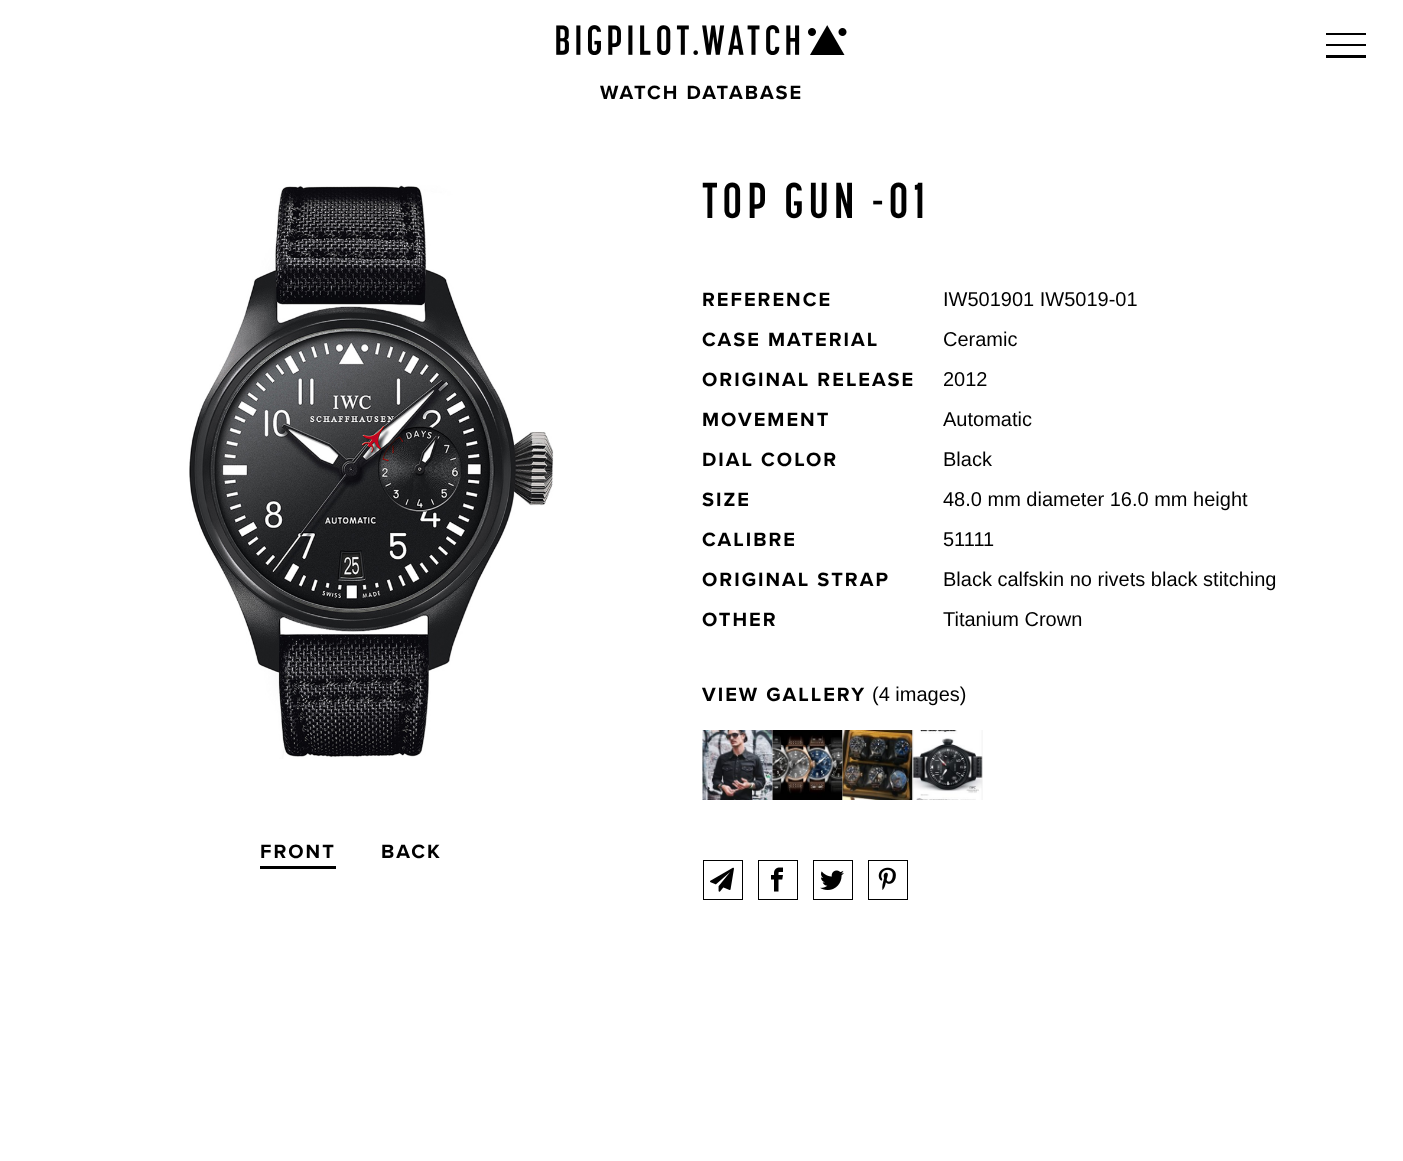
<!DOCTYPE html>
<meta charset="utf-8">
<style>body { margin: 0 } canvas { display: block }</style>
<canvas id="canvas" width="1403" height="1161"></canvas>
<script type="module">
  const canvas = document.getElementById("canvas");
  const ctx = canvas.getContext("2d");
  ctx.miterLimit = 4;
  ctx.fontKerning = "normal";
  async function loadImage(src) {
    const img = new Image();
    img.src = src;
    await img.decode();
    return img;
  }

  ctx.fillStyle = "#ffffff";
  ctx.fillRect(0, 0, 1403, 1161);
  ctx.drawImage(await loadImage("img1.png"), 556, 25, 291, 30);
  ctx.fillStyle = "#000000";
  ctx.fillRect(1326, 33, 40, 2);
  ctx.fillRect(1326, 44, 40, 2);
  ctx.fillRect(1326, 55, 40, 3);
  ctx.letterSpacing = "2px";
  ctx.font = "bold 20px Proxima Nova";
  ctx.fillText("WATCH DATABASE", 600, 99);
  ctx.letterSpacing = "5px";
  ctx.font = "bold 50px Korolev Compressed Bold";
  ctx.fillText("TOP GUN -01", 702, 218);
  ctx.letterSpacing = "2px";
  ctx.font = "bold 20px Proxima Nova";
  ctx.fillText("REFERENCE", 702, 306);
  ctx.letterSpacing = "0px";
  ctx.font = "20px Liberation Sans";
  ctx.fillText("IW501901 IW5019-01", 943, 306);
  ctx.letterSpacing = "2px";
  ctx.font = "bold 20px Proxima Nova";
  ctx.fillText("CASE MATERIAL", 702, 346);
  ctx.letterSpacing = "0px";
  ctx.font = "20px Liberation Sans";
  ctx.fillText("Ceramic", 943, 346);
  ctx.letterSpacing = "2px";
  ctx.font = "bold 20px Proxima Nova";
  ctx.fillText("ORIGINAL RELEASE", 702, 386);
  ctx.letterSpacing = "0px";
  ctx.font = "20px Liberation Sans";
  ctx.fillText("2012", 943, 386);
  ctx.letterSpacing = "2px";
  ctx.font = "bold 20px Proxima Nova";
  ctx.fillText("MOVEMENT", 702, 426);
  ctx.letterSpacing = "0px";
  ctx.font = "20px Liberation Sans";
  ctx.fillText("Automatic", 943, 426);
  ctx.letterSpacing = "2px";
  ctx.font = "bold 20px Proxima Nova";
  ctx.fillText("DIAL COLOR", 702, 466);
  ctx.letterSpacing = "0px";
  ctx.font = "20px Liberation Sans";
  ctx.fillText("Black", 943, 466);
  ctx.letterSpacing = "2px";
  ctx.font = "bold 20px Proxima Nova";
  ctx.fillText("SIZE", 702, 506);
  ctx.letterSpacing = "0px";
  ctx.font = "20px Liberation Sans";
  ctx.fillText("48.0 mm diameter 16.0 mm height", 943, 506);
  ctx.letterSpacing = "2px";
  ctx.font = "bold 20px Proxima Nova";
  ctx.fillText("CALIBRE", 702, 546);
  ctx.letterSpacing = "0px";
  ctx.font = "20px Liberation Sans";
  ctx.fillText("51111", 943, 546);
  ctx.letterSpacing = "2px";
  ctx.font = "bold 20px Proxima Nova";
  ctx.fillText("ORIGINAL STRAP", 702, 586);
  ctx.letterSpacing = "0px";
  ctx.font = "20px Liberation Sans";
  ctx.fillText("Black calfskin no rivets black stitching", 943, 586);
  ctx.letterSpacing = "2px";
  ctx.font = "bold 20px Proxima Nova";
  ctx.fillText("OTHER", 702, 626);
  ctx.letterSpacing = "0px";
  ctx.font = "20px Liberation Sans";
  ctx.fillText("Titanium Crown", 943, 626);
  ctx.letterSpacing = "2px";
  ctx.font = "bold 20px Proxima Nova";
  ctx.fillText("VIEW GALLERY", 702, 701);
  ctx.letterSpacing = "0px";
  ctx.font = "20px Liberation Sans";
  ctx.fillText("(4 images)", 872, 701);
  ctx.drawImage(await loadImage("img2.png"), 702, 730, 71, 70);
  ctx.drawImage(await loadImage("img3.png"), 772, 730, 71, 70);
  ctx.drawImage(await loadImage("img4.png"), 842, 730, 71, 70);
  ctx.drawImage(await loadImage("img5.png"), 912, 730, 71, 70);
  ctx.strokeStyle = "#000000";
  ctx.strokeRect(703.5, 860.5, 39, 39);
  ctx.drawImage(await loadImage("img6.png"), 710, 867, 24, 25);
  ctx.strokeRect(758.5, 860.5, 39, 39);
  ctx.drawImage(await loadImage("img7.png"), 771, 867, 12, 25);
  ctx.strokeRect(813.5, 860.5, 39, 39);
  ctx.drawImage(await loadImage("img8.png"), 820, 870, 24, 20);
  ctx.strokeRect(868.5, 860.5, 39, 39);
  ctx.drawImage(await loadImage("img9.png"), 878, 867, 18, 23);
  ctx.drawImage(await loadImage("img10.png"), 189, 185, 365, 574);
  ctx.fillRect(260, 866, 76, 3);
  ctx.letterSpacing = "2px";
  ctx.font = "bold 20px Proxima Nova";
  ctx.fillText("FRONT", 260, 858);
  ctx.fillText("BACK", 381, 858);
</script>
